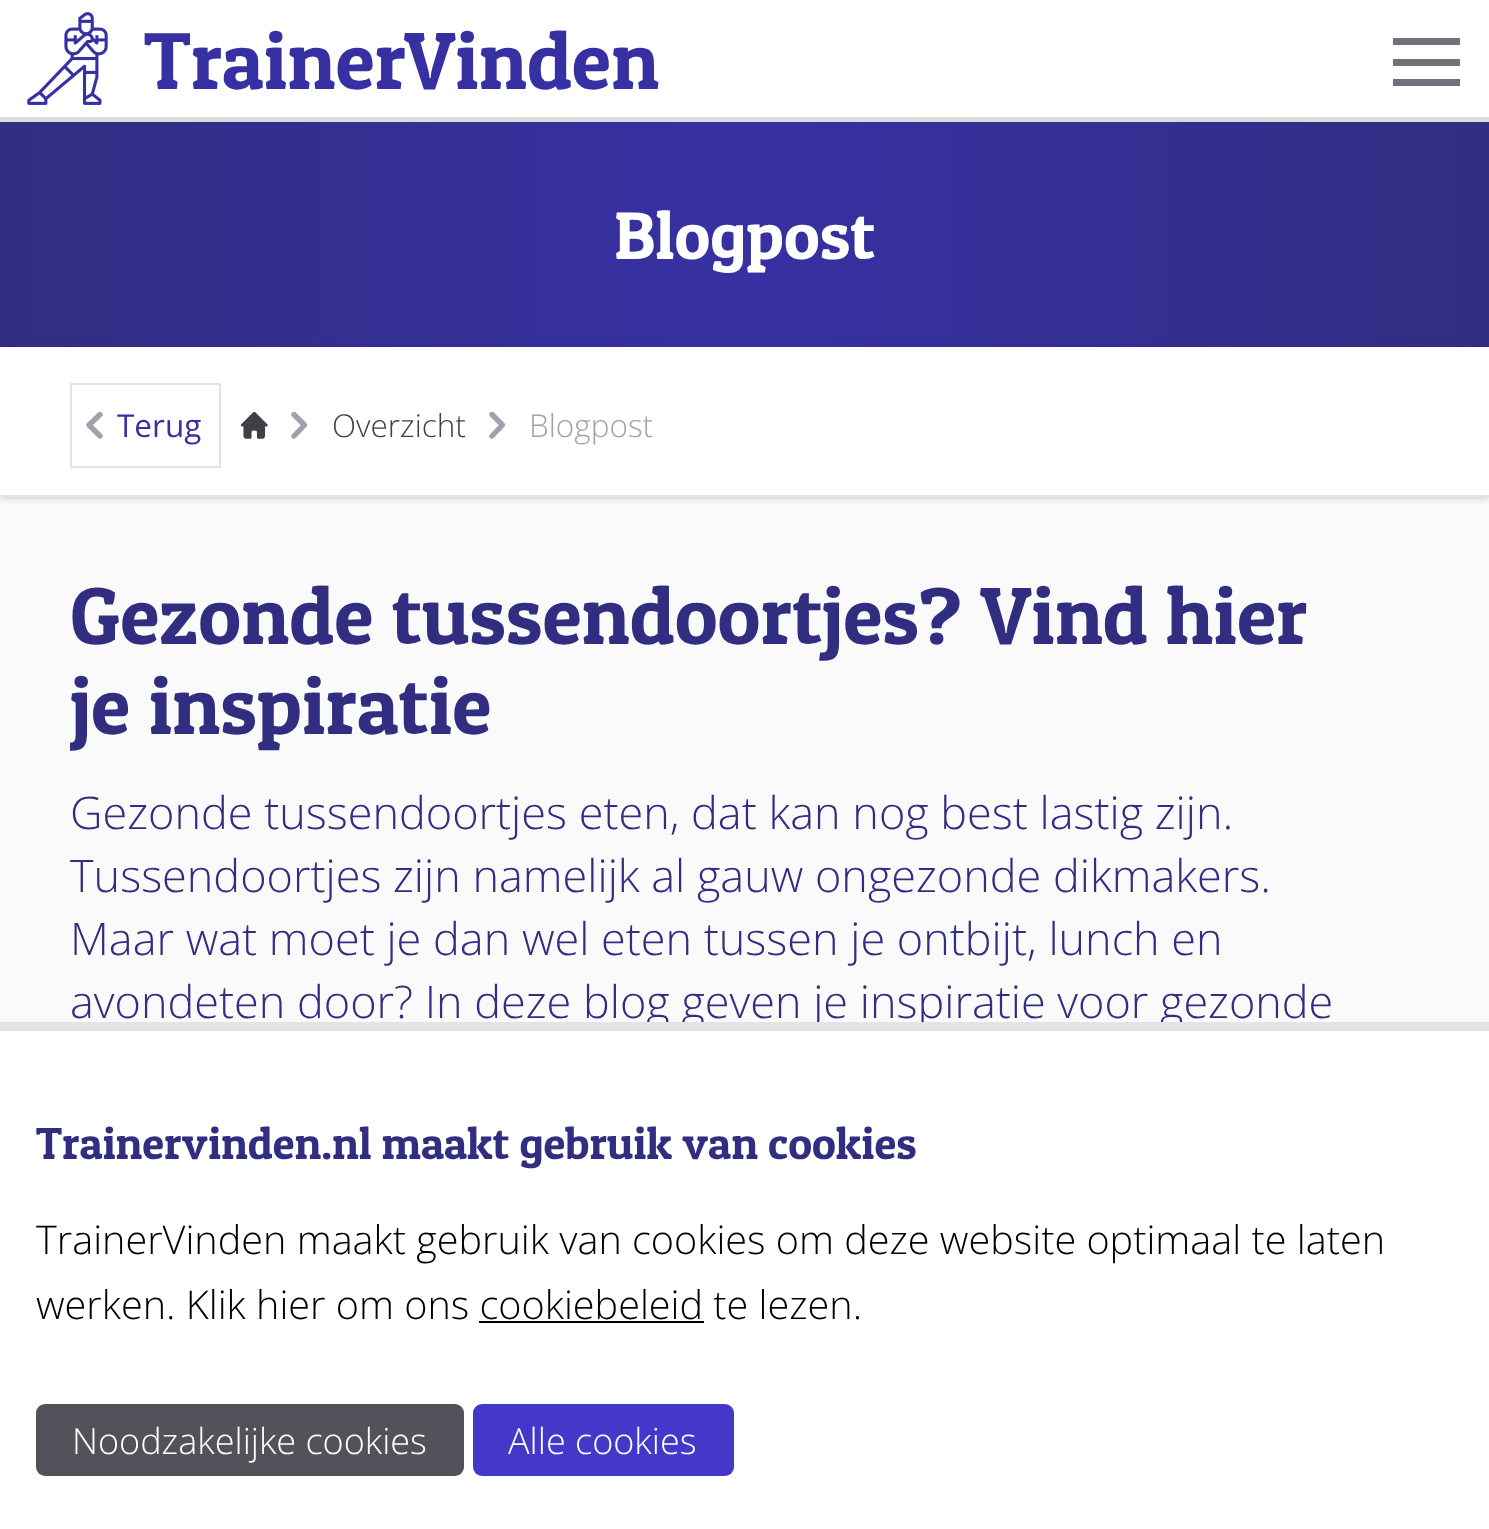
<!DOCTYPE html>
<meta charset="utf-8">
<style>body { margin: 0 } canvas { display: block }</style>
<canvas id="canvas" width="1489" height="1529"></canvas>
<script type="module">
  const canvas = document.getElementById("canvas");
  const ctx = canvas.getContext("2d");
  ctx.miterLimit = 4;
  ctx.fontKerning = "normal";
  async function loadImage(src) {
    const img = new Image();
    img.src = src;
    await img.decode();
    return img;
  }
  let gradient;

  ctx.fillStyle = "#fafafa";
  ctx.fillRect(0, 0, 1489, 1529);
  ctx.fillStyle = "#ffffff";
  ctx.fillRect(0, 0, 1489, 117);
  ctx.fillStyle = "#dcdcdc";
  ctx.fillRect(0, 117, 1489, 5);
  ctx.drawImage(await loadImage("img1.png"), 27, 12, 81, 93);
  ctx.font = "81px Patua One";
  ctx.fillStyle = "#3730a3";
  ctx.fillText("TrainerVinden", 144, 89);
  ctx.fillStyle = "#71717a";
  ctx.fillRect(1393, 38, 67, 7);
  ctx.fillRect(1393, 59, 67, 7);
  ctx.fillRect(1393, 79, 67, 7);
  gradient = ctx.createLinearGradient(0, 234, 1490, 234);
  gradient.addColorStop(0, "#312e81");
  gradient.addColorStop(0.5, "#3730a3");
  gradient.addColorStop(1, "#312e81");
  ctx.fillStyle = gradient;
  ctx.fillRect(0, 122, 1489, 225);
  ctx.font = "67.5px Patua One";
  ctx.fillStyle = "#ffffff";
  ctx.fillText("Blogpost", 614, 259);
  ctx.fillStyle = "#3730a1";
  ctx.beginPath();
  ctx.moveTo(706, 344);
  ctx.lineTo(783, 344);
  ctx.lineTo(745, 382);
  ctx.closePath();
  ctx.fill();
  ctx.fillStyle = "rgba(0, 0, 0, 0.1)";
  ctx.filter = "blur(2px)";
  ctx.beginPath();
  ctx.rect(2, 351, 1485, 146);
  ctx.fill();
  ctx.filter = "none";
  ctx.filter = "blur(3.5px)";
  ctx.beginPath();
  ctx.rect(0, 349, 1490, 151);
  ctx.fill();
  ctx.filter = "none";
  ctx.fillStyle = "#ffffff";
  ctx.fillRect(0, 347, 1489, 148);
  ctx.strokeStyle = "#e4e4e7";
  ctx.lineWidth = 2;
  ctx.strokeRect(71, 384, 149, 83);
  ctx.beginPath();
  ctx.moveTo(100, 414.5);
  ctx.lineTo(89, 425);
  ctx.lineTo(100, 436);
  ctx.strokeStyle = "#a1a1aa";
  ctx.lineWidth = 5.4;
  ctx.lineCap = "round";
  ctx.lineJoin = "round";
  ctx.stroke();
  ctx.font = "31.5px Open Sans";
  ctx.fillStyle = "#3730a3";
  ctx.fillText("Terug", 117, 437);
  ctx.drawImage(await loadImage("img2.png"), 241, 412, 27, 27);
  ctx.beginPath();
  ctx.moveTo(294, 436);
  ctx.lineTo(304.5, 425);
  ctx.lineTo(294, 414.5);
  ctx.stroke();
  ctx.font = "300 31.5px Open Sans";
  ctx.fillStyle = "#3f3f46";
  ctx.fillText("Overzicht", 332, 437);
  ctx.beginPath();
  ctx.moveTo(492, 436);
  ctx.lineTo(502.5, 425);
  ctx.lineTo(492, 414.5);
  ctx.stroke();
  ctx.fillStyle = "#a1a1aa";
  ctx.fillText("Blogpost", 529, 437);
  ctx.fillStyle = "#e4e4e7";
  ctx.fillRect(0, 495, 1489, 2);
  ctx.font = "81px Patua One";
  ctx.fillStyle = "#312e81";
  ctx.fillText("Gezonde tussendoortjes? Vind hier", 70, 644);
  ctx.save();
  ctx.beginPath();
  ctx.rect(70, 569, 1350, 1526);
  ctx.clip();
  ctx.fillText("je inspiratie", 70, 734);
  ctx.restore();
  ctx.font = "300 45px Open Sans";
  ctx.fillText("Gezonde tussendoortjes eten, dat kan nog best lastig zijn.", 70, 829);
  ctx.fillText("Tussendoortjes zijn namelijk al gauw ongezonde dikmakers.", 70, 892);
  ctx.fillText("Maar wat moet je dan wel eten tussen je ontbijt, lunch en", 70, 955);
  ctx.fillText("avondeten door? In deze blog geven je inspiratie voor gezonde", 70, 1018);
  ctx.fillStyle = "#ffffff";
  ctx.fillRect(0, 1031, 1489, 498);
  ctx.fillStyle = "#e4e4e7";
  ctx.fillRect(0, 1022, 1489, 9);
  ctx.font = "45px Patua One";
  ctx.fillStyle = "#312e81";
  ctx.fillText("Trainervinden.nl maakt gebruik van cookies", 36, 1159);
  ctx.font = "300 39.6px Open Sans";
  ctx.fillStyle = "#000000";
  ctx.fillText("TrainerVinden maakt gebruik van cookies om deze website optimaal te laten", 36, 1254);
  ctx.fillText("werken. Klik hier om ons cookiebeleid te lezen.", 36, 1319);
  ctx.fillRect(479, 1321, 225, 2);
  ctx.fillStyle = "#52525b";
  ctx.beginPath();
  ctx.roundRect(36, 1404, 428, 72, 9);
  ctx.fill();
  ctx.font = "300 36px Open Sans";
  ctx.fillStyle = "#ffffff";
  ctx.fillText("Noodzakelijke cookies", 72, 1454);
  ctx.fillStyle = "#4338ca";
  ctx.beginPath();
  ctx.roundRect(473, 1404, 261, 72, 9);
  ctx.fill();
  ctx.fillStyle = "#ffffff";
  ctx.fillText("Alle cookies", 508, 1454);
</script>
